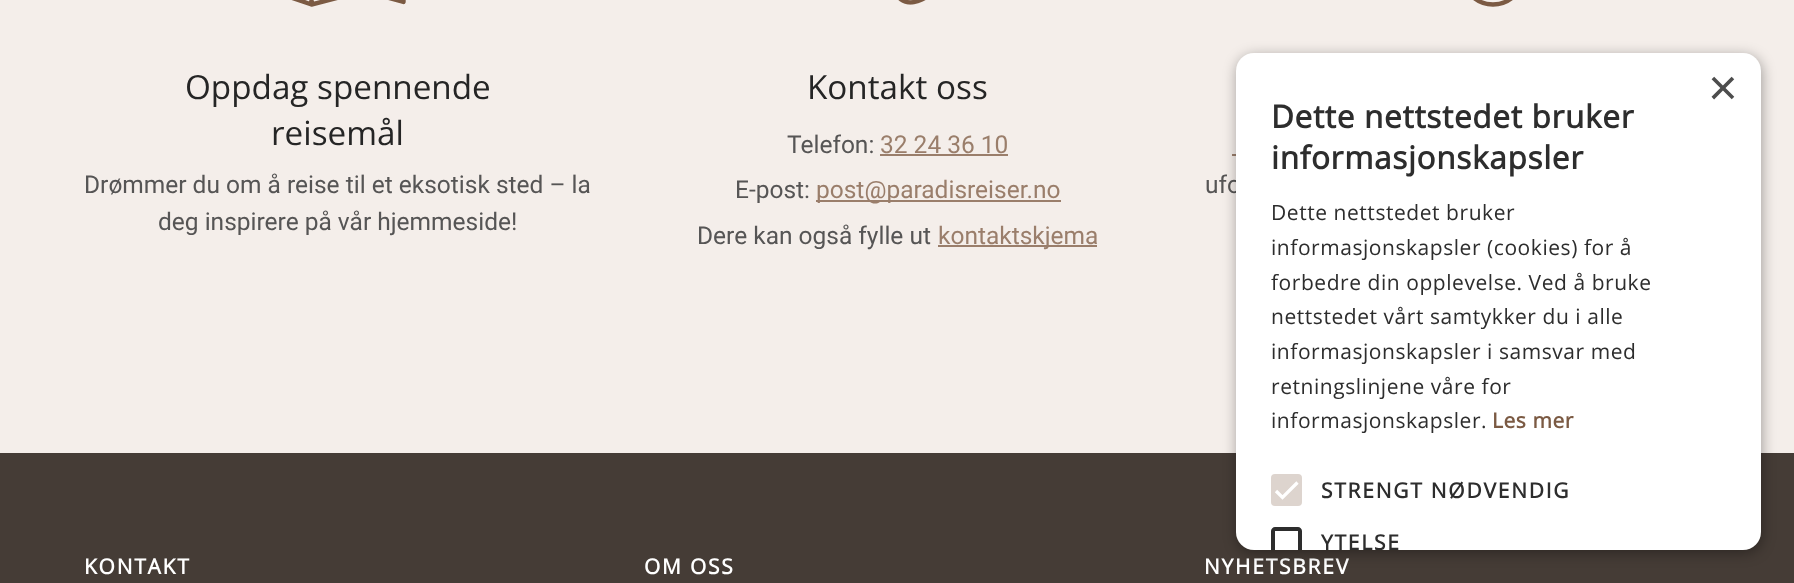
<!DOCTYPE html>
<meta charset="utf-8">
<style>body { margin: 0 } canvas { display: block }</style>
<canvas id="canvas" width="1794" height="583"></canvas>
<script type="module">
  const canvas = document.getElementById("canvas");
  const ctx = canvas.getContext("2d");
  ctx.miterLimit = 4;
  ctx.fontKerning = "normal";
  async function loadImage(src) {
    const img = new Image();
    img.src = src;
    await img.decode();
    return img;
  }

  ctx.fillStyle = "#f4eeea";
  ctx.fillRect(0, 0, 1794, 583);
  ctx.beginPath();
  ctx.moveTo(321, -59.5);
  ctx.lineTo(311.5, -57);
  ctx.lineTo(272, -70);
  ctx.lineTo(272, -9);
  ctx.lineTo(311.5, 4.5);
  ctx.lineTo(364, -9);
  ctx.lineTo(403.5, 2);
  ctx.lineTo(403.5, -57);
  ctx.lineTo(377, -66);
  ctx.moveTo(311.5, -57);
  ctx.lineTo(311.5, 4.5);
  ctx.moveTo(364, -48);
  ctx.lineTo(364, -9);
  ctx.strokeStyle = "#7b5a43";
  ctx.lineWidth = 4.4;
  ctx.lineCap = "round";
  ctx.lineJoin = "round";
  ctx.stroke();
  ctx.font = "33.25px Open Sans";
  ctx.fillStyle = "#252525";
  ctx.fillText("Oppdag spennende", 185, 99);
  ctx.fillText("reisemål", 271, 145);
  ctx.font = "24.5px Roboto";
  ctx.fillStyle = "#565555";
  ctx.fillText("Drømmer du om å reise til et eksotisk sted – la", 84, 193);
  ctx.fillText("deg inspirere på vår hjemmeside!", 158, 230);
  ctx.drawImage(await loadImage("img1.png"), 898, 0, 28, 5);
  ctx.font = "33.25px Open Sans";
  ctx.fillStyle = "#252525";
  ctx.fillText("Kontakt oss", 807, 99);
  ctx.font = "24.5px Roboto";
  ctx.fillStyle = "#565555";
  ctx.fillText("Telefon:", 787, 153);
  ctx.fillStyle = "#9a7e6b";
  ctx.fillText("32 24 36 10", 880, 153);
  ctx.fillRect(880, 154, 128, 2);
  ctx.fillStyle = "#565555";
  ctx.fillText("E-post:", 735, 198);
  ctx.fillStyle = "#9a7e6b";
  ctx.fillRect(816, 200, 245, 2);
  ctx.fillText("post@paradisreiser.no", 816, 198);
  ctx.fillStyle = "#565555";
  ctx.fillText("Dere kan også fylle ut", 697, 244);
  ctx.fillStyle = "#9a7e6b";
  ctx.fillRect(938, 245, 159, 2);
  ctx.fillText("kontaktskjema", 938, 244);
  ctx.beginPath();
  ctx.arc(1493, -26, 30.5, 0, Math.PI * 2);
  ctx.stroke();
  ctx.fillRect(1232, 154, 4, 2);
  ctx.fillStyle = "#565555";
  ctx.fillText("ufo", 1205, 193);
  ctx.fillStyle = "#453c36";
  ctx.fillRect(0, 453, 1794, 130);
  ctx.letterSpacing = "1.75px";
  ctx.font = "bold 21px Open Sans";
  ctx.fillStyle = "#ffffff";
  ctx.fillText("KONTAKT", 84, 574);
  ctx.fillText("OM OSS", 644, 574);
  ctx.fillText("NYHETSBREV", 1204, 574);
  ctx.fillStyle = "rgba(0, 0, 0, 0.35)";
  ctx.filter = "blur(7px)";
  ctx.beginPath();
  ctx.roundRect(1237, 56, 525, 497, 18);
  ctx.fill();
  ctx.filter = "none";
  ctx.fillStyle = "#ffffff";
  ctx.beginPath();
  ctx.roundRect(1236, 53, 525, 497, 18);
  ctx.fill();
  ctx.letterSpacing = "0px";
  ctx.font = "51px Liberation Sans";
  ctx.fillStyle = "#4d4d4d";
  ctx.fillText("×", 1708, 105);
  ctx.letterSpacing = "0.7px";
  ctx.font = "bold 31.5px Open Sans";
  ctx.fillStyle = "#2d2d2d";
  ctx.fillText("Dette nettstedet bruker", 1271, 128);
  ctx.fillText("informasjonskapsler", 1271, 169);
  ctx.letterSpacing = "0.55px";
  ctx.font = "21px Open Sans";
  ctx.fillText("Dette nettstedet bruker", 1271, 220);
  ctx.fillText("informasjonskapsler (cookies) for å", 1271, 255);
  ctx.fillText("forbedre din opplevelse. Ved å bruke", 1271, 290);
  ctx.fillText("nettstedet vårt samtykker du i alle", 1271, 324);
  ctx.fillText("informasjonskapsler i samsvar med", 1271, 359);
  ctx.fillText("retningslinjene våre for", 1271, 394);
  ctx.fillText("informasjonskapsler.", 1271, 428);
  ctx.font = "bold 21px Open Sans";
  ctx.fillStyle = "#7b5a43";
  ctx.fillText("Les mer", 1492, 428);
  ctx.fillStyle = "#ddd4ce";
  ctx.beginPath();
  ctx.roundRect(1271, 474, 31, 32, 4);
  ctx.fill();
  ctx.beginPath();
  ctx.moveTo(1276, 491);
  ctx.lineTo(1282.5, 497.5);
  ctx.lineTo(1297.5, 482.5);
  ctx.strokeStyle = "#ffffff";
  ctx.lineWidth = 3.2;
  ctx.lineCap = "butt";
  ctx.lineJoin = "miter";
  ctx.stroke();
  ctx.letterSpacing = "1.75px";
  ctx.fillStyle = "#2d2d2d";
  ctx.fillText("STRENGT NØDVENDIG", 1321, 498);
  ctx.beginPath();
  ctx.moveTo(1275, 527);
  ctx.bezierCurveTo(1273, 527, 1271, 529, 1271, 531);
  ctx.lineTo(1271, 550);
  ctx.lineTo(1275, 550);
  ctx.lineTo(1275, 531);
  ctx.lineTo(1298, 531);
  ctx.lineTo(1298, 550);
  ctx.lineTo(1302, 550);
  ctx.lineTo(1302, 531);
  ctx.bezierCurveTo(1302, 529, 1300, 527, 1298, 527);
  ctx.closePath();
  ctx.fill();
  ctx.save();
  ctx.beginPath();
  ctx.roundRect(1236, 53, 525, 497, 18);
  ctx.clip();
  ctx.fillText("YTELSE", 1321, 550);
  ctx.restore();
</script>
